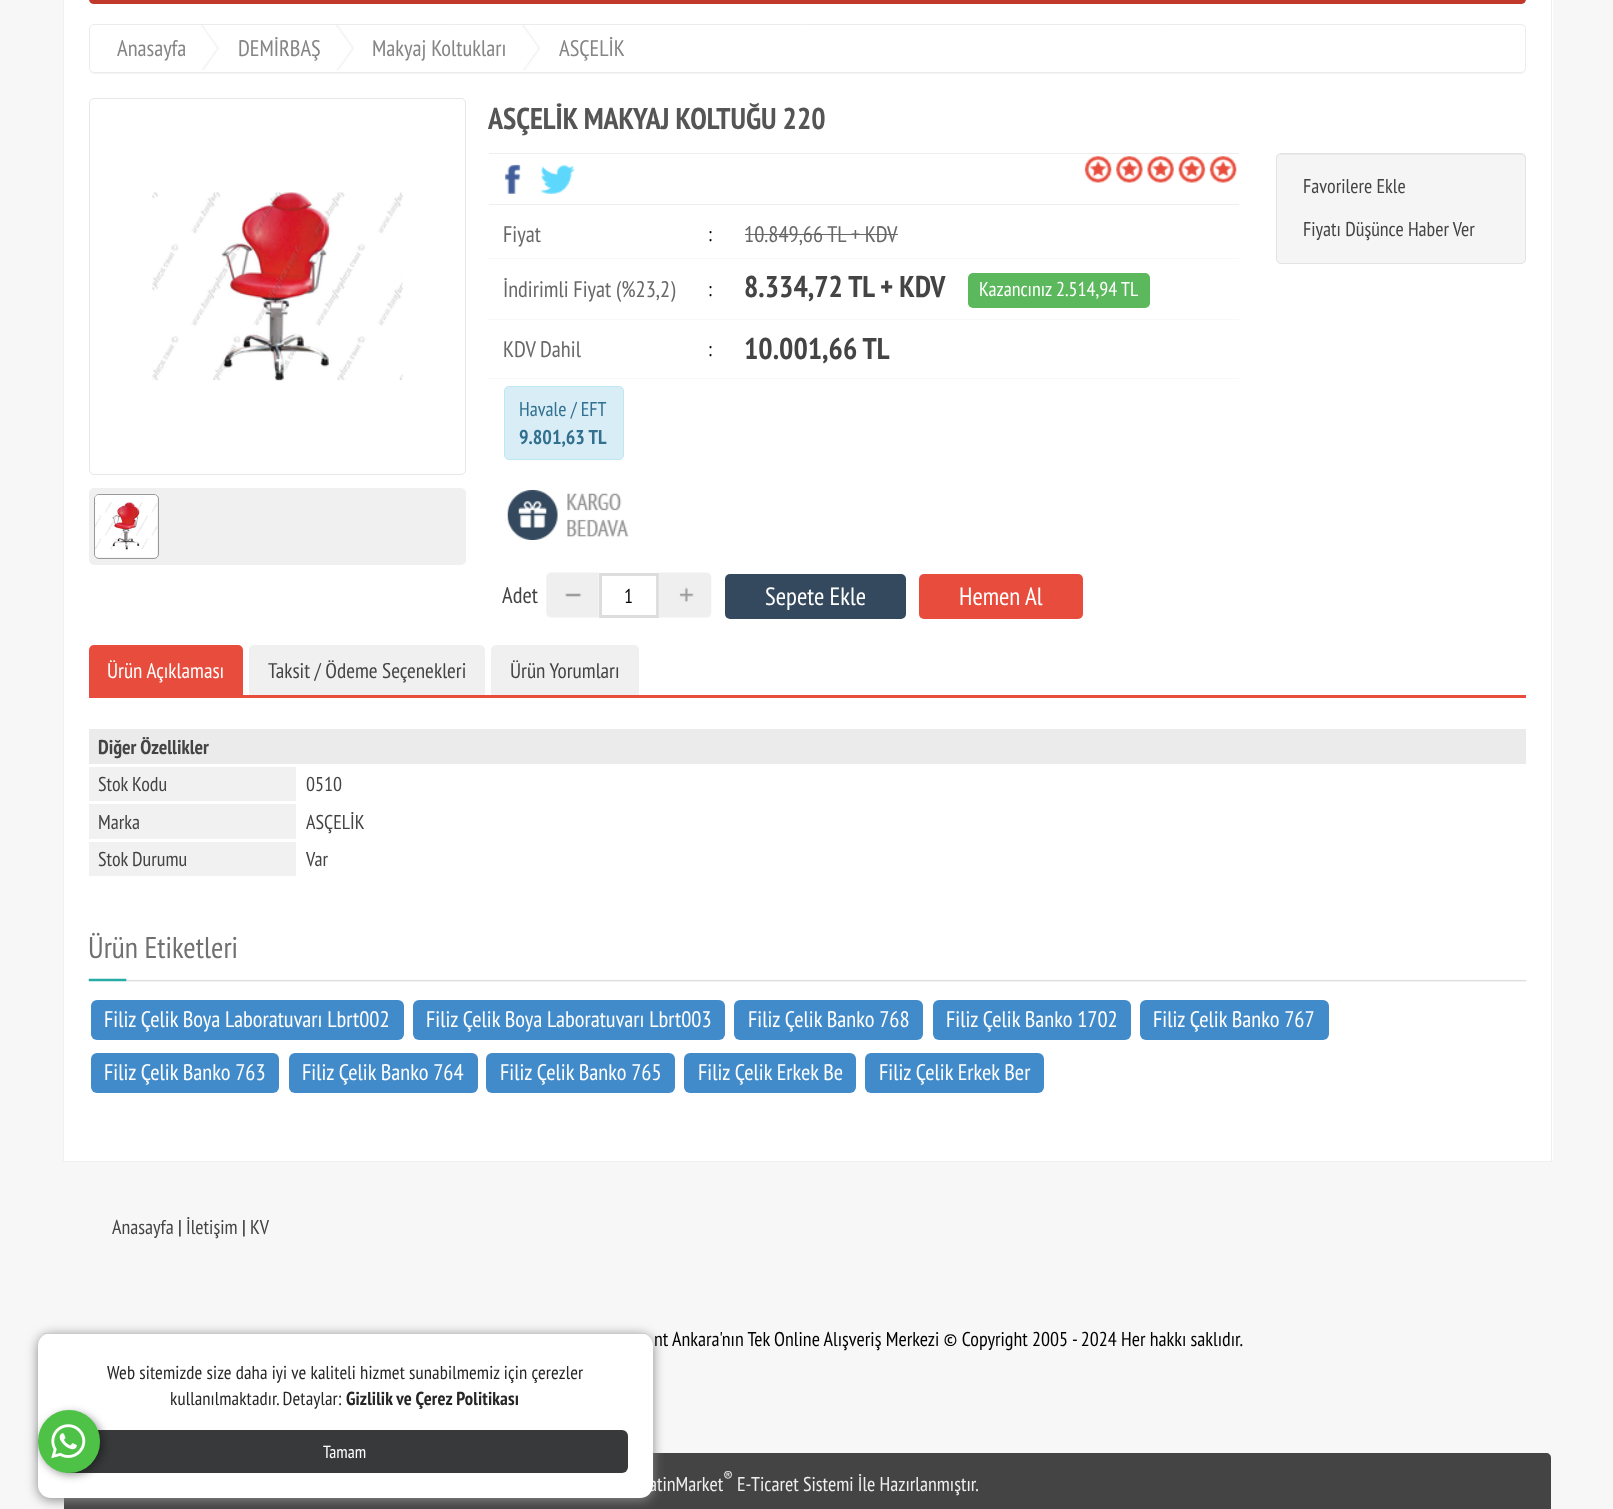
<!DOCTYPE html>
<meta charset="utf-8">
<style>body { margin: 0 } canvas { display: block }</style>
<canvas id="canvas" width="1613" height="1509"></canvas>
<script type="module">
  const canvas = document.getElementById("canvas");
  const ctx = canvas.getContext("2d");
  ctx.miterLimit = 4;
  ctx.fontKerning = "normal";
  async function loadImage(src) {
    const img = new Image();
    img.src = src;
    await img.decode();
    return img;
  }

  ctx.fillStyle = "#f7f7f7";
  ctx.fillRect(0, 0, 1613, 1509);
  ctx.fillStyle = "#444444";
  ctx.beginPath();
  ctx.moveTo(69, 1453);
  ctx.lineTo(1546, 1453);
  ctx.bezierCurveTo(1549, 1453, 1551, 1455, 1551, 1458);
  ctx.lineTo(1551, 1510);
  ctx.lineTo(64, 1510);
  ctx.lineTo(64, 1458);
  ctx.bezierCurveTo(64, 1455, 66, 1453, 69, 1453);
  ctx.closePath();
  ctx.fill();
  ctx.fillStyle = "#888888";
  ctx.filter = "blur(6px)";
  ctx.beginPath();
  ctx.roundRect(38, 1335, 615, 165, 13);
  ctx.fill();
  ctx.filter = "none";
  ctx.font = "20px PT Sans Narrow";
  ctx.fillStyle = "#eeeeee";
  ctx.fillText("atinMarket", 649, 1491);
  ctx.fillStyle = "#ffffff";
  ctx.beginPath();
  ctx.roundRect(38, 1333, 615, 165, 13);
  ctx.fill();
  ctx.fillStyle = "#37393b";
  ctx.beginPath();
  ctx.roundRect(63, 1430, 565, 43, 6);
  ctx.fill();
  ctx.fillStyle = "rgba(0, 0, 0, 0.4)";
  ctx.filter = "blur(4px)";
  ctx.beginPath();
  ctx.roundRect(40, 1413, 63, 62, 31);
  ctx.fill();
  ctx.filter = "none";
  ctx.fillStyle = "#4dc247";
  ctx.beginPath();
  ctx.roundRect(38, 1410, 62, 63, 31);
  ctx.fill();
  ctx.drawImage(await loadImage("img1.png"), 51, 1424, 35, 35);
  ctx.fillStyle = "#ffffff";
  ctx.fillRect(64, 0, 1489, 1161);
  ctx.fillStyle = "#f0f0f0";
  ctx.fillRect(1551, 0, 1, 1161);
  ctx.fillRect(63, 0, 1, 1161);
  ctx.save();
  ctx.beginPath();
  ctx.moveTo(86, 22);
  ctx.lineTo(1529, 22);
  ctx.lineTo(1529, 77);
  ctx.lineTo(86, 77);
  ctx.closePath();
  ctx.moveTo(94, 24);
  ctx.lineTo(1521, 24);
  ctx.bezierCurveTo(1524, 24, 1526, 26, 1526, 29);
  ctx.lineTo(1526, 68);
  ctx.bezierCurveTo(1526, 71, 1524, 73, 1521, 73);
  ctx.lineTo(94, 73);
  ctx.bezierCurveTo(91, 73, 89, 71, 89, 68);
  ctx.lineTo(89, 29);
  ctx.bezierCurveTo(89, 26, 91, 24, 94, 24);
  ctx.closePath();
  ctx.clip("evenodd");
  ctx.fillStyle = "rgba(0, 0, 0, 0.05)";
  ctx.filter = "blur(0.5px)";
  ctx.beginPath();
  ctx.roundRect(89, 25, 1437, 49, 5);
  ctx.fill();
  ctx.filter = "none";
  ctx.restore();
  ctx.beginPath();
  ctx.roundRect(89.5, 24.5, 1436, 48, 4.5);
  ctx.strokeStyle = "#ececec";
  ctx.stroke();
  ctx.font = "22.5px PT Sans Narrow";
  ctx.fillStyle = "#858585";
  ctx.fillText("Anasayfa", 117, 56);
  ctx.drawImage(await loadImage("img2.png"), 201, 25, 18, 45);
  ctx.fillText("DEMİRBAŞ", 238, 56);
  ctx.drawImage(await loadImage("img2.png"), 336, 25, 18, 45);
  ctx.fillText("Makyaj Koltukları", 372, 56);
  ctx.drawImage(await loadImage("img3.png"), 522, 25, 18, 45);
  ctx.fillText("ASÇELİK", 559, 56);
  ctx.beginPath();
  ctx.roundRect(89.5, 98.5, 376, 376, 4.5);
  ctx.strokeStyle = "#e7e7e7";
  ctx.stroke();
  ctx.drawImage(await loadImage("img4.png"), 152, 192, 251, 189);
  ctx.fillStyle = "#f0f0f0";
  ctx.beginPath();
  ctx.roundRect(89, 488, 377, 77, 5);
  ctx.fill();
  ctx.beginPath();
  ctx.roundRect(94.5, 494.5, 64, 64, 4.5);
  ctx.strokeStyle = "#999999";
  ctx.stroke();
  ctx.drawImage(await loadImage("img5.png"), 95, 495, 63, 63);
  ctx.font = "bold 30px PT Sans Narrow";
  ctx.fillStyle = "#555555";
  ctx.fillText("ASÇELİK MAKYAJ KOLTUĞU 220", 488, 129);
  ctx.fillStyle = "#eeeeee";
  ctx.fillRect(489, 153, 750, 1);
  ctx.fillRect(489, 204, 750, 1);
  ctx.drawImage(await loadImage("img6.png"), 504, 164, 17, 30);
  ctx.drawImage(await loadImage("img7.png"), 540, 164, 35, 30);
  ctx.drawImage(await loadImage("img8.png"), 1084, 156, 153, 27);
  ctx.fillStyle = "#f5f5f5";
  ctx.beginPath();
  ctx.roundRect(1276, 153, 250, 111, 5);
  ctx.fill();
  ctx.fillStyle = "#e9e9e9";
  ctx.beginPath();
  ctx.moveTo(1281, 155);
  ctx.lineTo(1521, 155);
  ctx.bezierCurveTo(1523, 155, 1525, 157, 1525, 159);
  ctx.lineTo(1525, 158);
  ctx.bezierCurveTo(1525, 156, 1523, 154, 1521, 154);
  ctx.lineTo(1282, 154);
  ctx.bezierCurveTo(1280, 154, 1278, 156, 1278, 158);
  ctx.lineTo(1278, 159);
  ctx.bezierCurveTo(1278, 157, 1279, 155, 1281, 155);
  ctx.closePath();
  ctx.fill();
  ctx.beginPath();
  ctx.roundRect(1276.5, 153.5, 249, 110, 4.5);
  ctx.strokeStyle = "#e3e3e3";
  ctx.stroke();
  ctx.font = "20px PT Sans Narrow";
  ctx.fillStyle = "#444444";
  ctx.fillText("Favorilere Ekle", 1303, 193);
  ctx.fillText("Fiyatı Düşünce Haber Ver", 1303, 236);
  ctx.font = "22.5px PT Sans Narrow";
  ctx.fillStyle = "#686868";
  ctx.fillText("Fiyat", 503, 242);
  ctx.font = "20px PT Sans Narrow";
  ctx.fillStyle = "#000000";
  ctx.fillText(":", 708, 241);
  ctx.fillStyle = "#f7f7f7";
  ctx.fillRect(488, 258, 751, 1);
  ctx.font = "22.5px PT Sans Narrow";
  ctx.fillStyle = "#686868";
  ctx.fillText("10.849,66 TL + KDV", 744, 242);
  ctx.fillRect(745, 234, 153, 1);
  ctx.fillText("İndirimli Fiyat (%23,2)", 503, 297);
  ctx.font = "20px PT Sans Narrow";
  ctx.fillStyle = "#000000";
  ctx.fillText(":", 708, 296);
  ctx.fillStyle = "#f7f7f7";
  ctx.fillRect(488, 319, 751, 1);
  ctx.font = "bold 30px PT Sans Narrow";
  ctx.fillStyle = "#444444";
  ctx.fillText("8.334,72 TL + KDV", 744, 297);
  ctx.fillStyle = "#5cb85c";
  ctx.beginPath();
  ctx.roundRect(968, 273, 182, 35, 5);
  ctx.fill();
  ctx.font = "20px PT Sans Narrow";
  ctx.fillStyle = "#ffffff";
  ctx.fillText("Kazancınız 2.514,94 TL", 979, 296);
  ctx.font = "22.5px PT Sans Narrow";
  ctx.fillStyle = "#686868";
  ctx.fillText("KDV Dahil", 503, 357);
  ctx.font = "20px PT Sans Narrow";
  ctx.fillStyle = "#000000";
  ctx.fillText(":", 708, 356);
  ctx.fillStyle = "#f7f7f7";
  ctx.fillRect(488, 378, 751, 1);
  ctx.font = "bold 30px PT Sans Narrow";
  ctx.fillStyle = "#444444";
  ctx.fillText("10.001,66 TL", 744, 359);
  ctx.fillStyle = "#d9edf7";
  ctx.beginPath();
  ctx.roundRect(504.5, 386.5, 119, 73, 4.5);
  ctx.fill();
  ctx.strokeStyle = "#bce8f1";
  ctx.stroke();
  ctx.font = "20px PT Sans Narrow";
  ctx.fillStyle = "#31708f";
  ctx.fillText("Havale / EFT", 519, 416);
  ctx.font = "bold 20px PT Sans Narrow";
  ctx.fillText("9.801,63 TL", 519, 444);
  ctx.drawImage(await loadImage("img9.png"), 507, 490, 122, 50);
  ctx.font = "22.5px PT Sans Narrow";
  ctx.fillStyle = "#444444";
  ctx.fillText("Adet", 502, 603);
  ctx.drawImage(await loadImage("img10.png"), 546, 572, 53, 46);
  ctx.strokeStyle = "#dddddd";
  ctx.lineWidth = 3;
  ctx.strokeRect(600.5, 574.5, 57, 42);
  ctx.font = "20px PT Sans Narrow";
  ctx.fillStyle = "#000000";
  ctx.fillText("1", 624, 603);
  ctx.drawImage(await loadImage("img11.png"), 658, 572, 54, 46);
  ctx.fillStyle = "#34495e";
  ctx.beginPath();
  ctx.roundRect(725, 574, 181, 45, 5);
  ctx.fill();
  ctx.font = "25px PT Sans Narrow";
  ctx.fillStyle = "#ffffff";
  ctx.fillText("Sepete Ekle", 765, 605);
  ctx.fillStyle = "#e74c3c";
  ctx.beginPath();
  ctx.roundRect(919, 574, 164, 45, 5);
  ctx.fill();
  ctx.fillStyle = "#ffffff";
  ctx.fillText("Hemen Al", 959, 605);
  ctx.fillStyle = "#e74c3c";
  ctx.fillRect(89, 695, 1437, 3);
  ctx.beginPath();
  ctx.roundRect(89, 645, 154, 50, [5, 5, 0, 0]);
  ctx.fill();
  ctx.font = "21.25px PT Sans Narrow";
  ctx.fillStyle = "#ffffff";
  ctx.fillText("Ürün Açıklaması", 107, 678);
  ctx.fillStyle = "#f0f0f0";
  ctx.beginPath();
  ctx.roundRect(249, 645, 236, 50, [5, 5, 0, 0]);
  ctx.fill();
  ctx.fillStyle = "#444444";
  ctx.fillText("Taksit / Ödeme Seçenekleri", 268, 678);
  ctx.fillStyle = "#f0f0f0";
  ctx.beginPath();
  ctx.roundRect(491, 645, 148, 50, [5, 5, 0, 0]);
  ctx.fill();
  ctx.fillStyle = "#444444";
  ctx.fillText("Ürün Yorumları", 510, 678);
  ctx.fillStyle = "#ebebeb";
  ctx.fillRect(89, 729, 1437, 35);
  ctx.font = "bold 20px PT Sans Narrow";
  ctx.fillStyle = "#444444";
  ctx.fillText("Diğer Özellikler", 98, 754);
  ctx.fillStyle = "#f1f1f1";
  ctx.fillRect(89, 767, 207, 34);
  ctx.font = "20px PT Sans Narrow";
  ctx.fillStyle = "#444444";
  ctx.fillText("Stok Kodu", 98, 791);
  ctx.fillText("0510", 306, 791);
  ctx.fillStyle = "#f1f1f1";
  ctx.fillRect(89, 804, 207, 35);
  ctx.fillStyle = "#444444";
  ctx.fillText("Marka", 98, 829);
  ctx.fillText("ASÇELİK", 306, 829);
  ctx.fillStyle = "#f1f1f1";
  ctx.fillRect(89, 842, 207, 34);
  ctx.fillStyle = "#444444";
  ctx.fillText("Stok Durumu", 98, 866);
  ctx.fillText("Var", 306, 866);
  ctx.drawImage(await loadImage("img12.png"), 88, 978, 1439, 4);
  ctx.font = "30px PT Sans Narrow";
  ctx.fillStyle = "#707070";
  ctx.fillText("Ürün Etiketleri", 88, 958);
  ctx.fillStyle = "#428bca";
  ctx.beginPath();
  ctx.roundRect(91, 1000, 313, 40, 6);
  ctx.fill();
  ctx.font = "22.5px PT Sans Narrow";
  ctx.fillStyle = "#ffffff";
  ctx.fillText("Filiz Çelik Boya Laboratuvarı Lbrt002", 104, 1027);
  ctx.fillStyle = "#428bca";
  ctx.beginPath();
  ctx.roundRect(413, 1000, 312, 40, 6);
  ctx.fill();
  ctx.fillStyle = "#ffffff";
  ctx.fillText("Filiz Çelik Boya Laboratuvarı Lbrt003", 426, 1027);
  ctx.fillStyle = "#428bca";
  ctx.beginPath();
  ctx.roundRect(734, 1000, 189, 40, 6);
  ctx.fill();
  ctx.fillStyle = "#ffffff";
  ctx.fillText("Filiz Çelik Banko 768", 748, 1027);
  ctx.fillStyle = "#428bca";
  ctx.beginPath();
  ctx.roundRect(933, 1000, 198, 40, 6);
  ctx.fill();
  ctx.fillStyle = "#ffffff";
  ctx.fillText("Filiz Çelik Banko 1702", 946, 1027);
  ctx.fillStyle = "#428bca";
  ctx.beginPath();
  ctx.roundRect(1140, 1000, 189, 40, 6);
  ctx.fill();
  ctx.fillStyle = "#ffffff";
  ctx.fillText("Filiz Çelik Banko 767", 1153, 1027);
  ctx.fillStyle = "#428bca";
  ctx.beginPath();
  ctx.roundRect(91, 1053, 188, 40, 6);
  ctx.fill();
  ctx.fillStyle = "#ffffff";
  ctx.fillText("Filiz Çelik Banko 763", 104, 1080);
  ctx.fillStyle = "#428bca";
  ctx.beginPath();
  ctx.roundRect(289, 1053, 189, 40, 6);
  ctx.fill();
  ctx.fillStyle = "#ffffff";
  ctx.fillText("Filiz Çelik Banko 764", 302, 1080);
  ctx.fillStyle = "#428bca";
  ctx.beginPath();
  ctx.roundRect(486, 1053, 189, 40, 6);
  ctx.fill();
  ctx.fillStyle = "#ffffff";
  ctx.fillText("Filiz Çelik Banko 765", 500, 1080);
  ctx.fillStyle = "#428bca";
  ctx.beginPath();
  ctx.roundRect(684, 1053, 172, 40, 6);
  ctx.fill();
  ctx.fillStyle = "#ffffff";
  ctx.fillText("Filiz Çelik Erkek Be", 698, 1080);
  ctx.fillStyle = "#428bca";
  ctx.beginPath();
  ctx.roundRect(865, 1053, 179, 40, 6);
  ctx.fill();
  ctx.fillStyle = "#ffffff";
  ctx.fillText("Filiz Çelik Erkek Ber", 879, 1080);
  ctx.fillStyle = "#f0f0f0";
  ctx.fillRect(63, 1161, 1490, 1);
  ctx.font = "20px PT Sans Narrow";
  ctx.fillStyle = "#444444";
  ctx.fillText("Anasayfa", 112, 1234);
  ctx.fillStyle = "#000000";
  ctx.fillText("|", 178, 1234);
  ctx.fillStyle = "#444444";
  ctx.fillText("İletişim", 186, 1234);
  ctx.fillStyle = "#000000";
  ctx.fillText("|", 242, 1234);
  ctx.fillStyle = "#444444";
  ctx.fillText("KV", 250, 1234);
  ctx.fillStyle = "#000000";
  ctx.fillText("nt Ankara'nın Tek Online Alışveriş Merkezi © Copyright 2005 - 2024 Her hakkı saklıdır.", 654, 1346);
  ctx.fillStyle = "#c0392b";
  ctx.beginPath();
  ctx.moveTo(89, -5);
  ctx.lineTo(89, -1);
  ctx.bezierCurveTo(89, 2, 91, 4, 94, 4);
  ctx.lineTo(1521, 4);
  ctx.bezierCurveTo(1524, 4, 1526, 2, 1526, -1);
  ctx.lineTo(1526, -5);
  ctx.bezierCurveTo(1525, -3, 1523, -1, 1521, -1);
  ctx.lineTo(94, -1);
  ctx.bezierCurveTo(92, -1, 90, -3, 89, -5);
  ctx.closePath();
  ctx.fill();
  ctx.fillStyle = "#cccccc";
  ctx.fillRect(44, 1333, 602, 1);
  ctx.letterSpacing = "0.12px";
  ctx.font = "18.75px PT Sans Narrow";
  ctx.fillStyle = "#262626";
  ctx.fillText("Web sitemizde size daha iyi ve kaliteli hizmet sunabilmemiz için çerezler", 107, 1379);
  ctx.fillText("kullanılmaktadır. Detaylar:", 170, 1405);
  ctx.font = "bold 18.75px PT Sans Narrow";
  ctx.fillText("Gizlilik ve Çerez Politikası", 346, 1405);
  ctx.letterSpacing = "0px";
  ctx.font = "17.5px PT Sans Narrow";
  ctx.fillStyle = "#ffffff";
  ctx.fillText("Tamam", 323, 1458);
  ctx.font = "17px PT Sans Narrow";
  ctx.fillStyle = "#eeeeee";
  ctx.fillText("®", 723, 1483);
  ctx.font = "20px PT Sans Narrow";
  ctx.fillText("E-Ticaret Sistemi İle Hazırlanmıştır.", 737, 1491);
</script>
